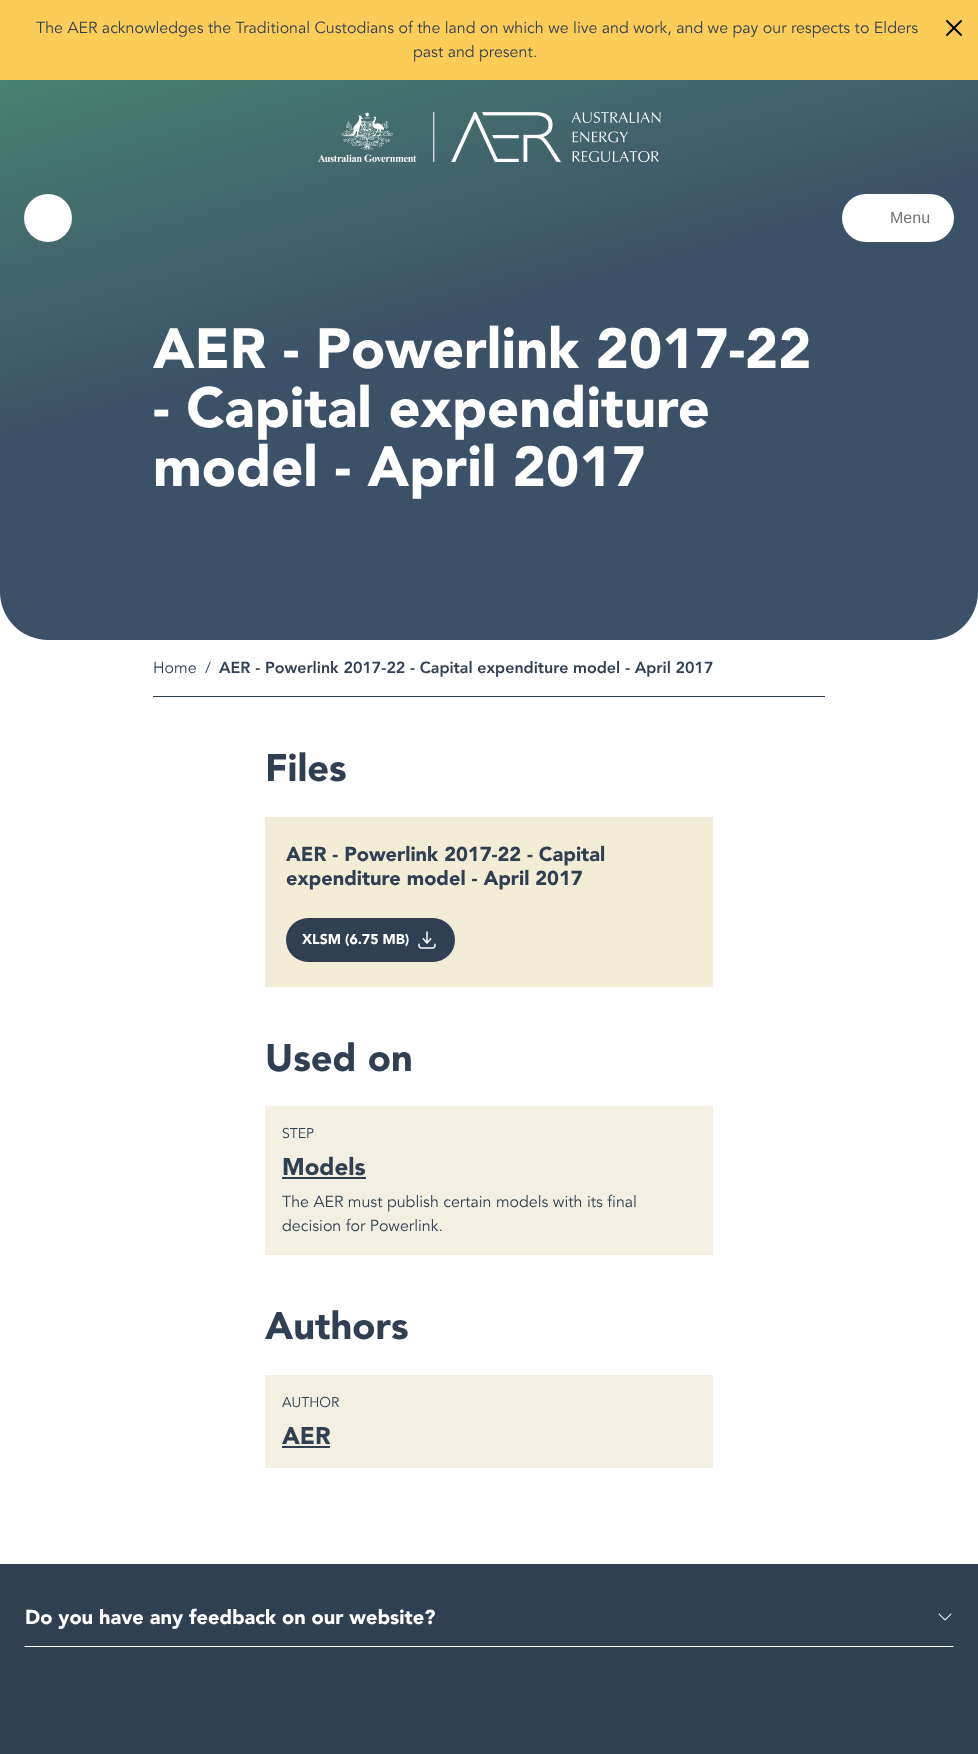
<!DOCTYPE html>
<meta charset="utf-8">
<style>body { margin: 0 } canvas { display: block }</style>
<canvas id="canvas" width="978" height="1754"></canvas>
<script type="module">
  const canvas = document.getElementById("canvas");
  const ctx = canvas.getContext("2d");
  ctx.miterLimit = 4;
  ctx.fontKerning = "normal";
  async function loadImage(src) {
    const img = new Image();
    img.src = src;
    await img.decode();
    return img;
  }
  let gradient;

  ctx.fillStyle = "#ffffff";
  ctx.fillRect(0, 0, 978, 1754);
  ctx.fillStyle = "#fccc59";
  ctx.fillRect(0, 0, 978, 80);
  ctx.font = "16px Avenir";
  ctx.fillStyle = "#303f51";
  ctx.fillText("The AER acknowledges the Traditional Custodians of the land on which we live and work, and we pay our respects to Elders", 36, 33);
  ctx.fillText("past and present.", 413, 57);
  ctx.drawImage(await loadImage("img1.png"), 946, 20, 16, 16);
  gradient = ctx.createLinearGradient(592, 743, 386, -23);
  gradient.addColorStop(0, "#3c5067");
  gradient.addColorStop(0.55, "#3c5067");
  gradient.addColorStop(1, "#478171");
  ctx.fillStyle = gradient;
  ctx.beginPath();
  ctx.roundRect(0, 80, 978, 560, [0, 0, 48, 48]);
  ctx.fill();
  ctx.drawImage(await loadImage("img2.png"), 318, 112, 343, 50);
  ctx.fillStyle = "#ffffff";
  ctx.beginPath();
  ctx.arc(48, 218, 24, 0, Math.PI * 2);
  ctx.fill();
  ctx.beginPath();
  ctx.roundRect(842, 194, 112, 48, 24);
  ctx.fill();
  ctx.font = "16px Liberation Sans";
  ctx.fillStyle = "#737373";
  ctx.fillText("Menu", 890, 223);
  ctx.font = "900 56px 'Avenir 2'";
  ctx.fillStyle = "#ffffff";
  ctx.fillText("AER - Powerlink 2017-22", 153, 368);
  ctx.fillText("- Capital expenditure", 153, 427);
  ctx.fillText("model - April 2017", 153, 486);
  ctx.fillStyle = "#303f51";
  ctx.fillRect(153, 696, 672, 1);
  ctx.font = "16px Avenir";
  ctx.fillText("Home", 153, 673);
  ctx.fillText("/", 205, 673);
  ctx.font = "900 16px Avenir";
  ctx.fillText("AER - Powerlink 2017-22 - Capital expenditure model - April 2017", 219, 673);
  ctx.font = "900 38px 'Avenir 2'";
  ctx.fillText("Files", 265, 781);
  ctx.fillStyle = "#f3edd8";
  ctx.fillRect(265, 817, 448, 170);
  ctx.font = "900 20px 'Avenir 2'";
  ctx.fillStyle = "#303f51";
  ctx.fillText("AER - Powerlink 2017-22 - Capital", 286, 861);
  ctx.fillText("expenditure model - April 2017", 286, 885);
  ctx.beginPath();
  ctx.roundRect(286, 918, 169, 44, 22);
  ctx.fill();
  ctx.font = "900 14px 'Avenir 2'";
  ctx.fillStyle = "#ffffff";
  ctx.fillText("XLSM (6.75 MB)", 302, 944);
  ctx.drawImage(await loadImage("img3.png"), 418, 931, 18, 18);
  ctx.font = "900 38px 'Avenir 2'";
  ctx.fillStyle = "#303f51";
  ctx.fillText("Used on", 265, 1071);
  ctx.fillStyle = "#f3f0e3";
  ctx.fillRect(265, 1106, 448, 149);
  ctx.font = "14px Avenir";
  ctx.fillStyle = "#303f51";
  ctx.fillText("STEP", 282, 1138);
  ctx.font = "900 24px 'Avenir 2'";
  ctx.fillText("Models", 282, 1175);
  ctx.fillRect(282, 1177, 84, 2);
  ctx.font = "16px Avenir";
  ctx.fillText("The AER must publish certain models with its final", 282, 1207);
  ctx.fillText("decision for Powerlink.", 282, 1231);
  ctx.font = "900 38px 'Avenir 2'";
  ctx.fillText("Authors", 265, 1339);
  ctx.fillStyle = "#f3f0e3";
  ctx.fillRect(265, 1375, 448, 93);
  ctx.font = "14px Avenir";
  ctx.fillStyle = "#303f51";
  ctx.fillText("AUTHOR", 282, 1407);
  ctx.font = "900 24px 'Avenir 2'";
  ctx.fillText("AER", 282, 1444);
  ctx.fillRect(282, 1446, 48, 2);
  ctx.fillRect(0, 1564, 978, 190);
  ctx.fillStyle = "#ffffff";
  ctx.beginPath();
  ctx.moveTo(954, 1647);
  ctx.lineTo(24, 1647);
  ctx.lineTo(25, 1646);
  ctx.lineTo(953, 1646);
  ctx.closePath();
  ctx.fill();
  ctx.font = "900 20px 'Avenir 2'";
  ctx.fillText("Do you have any feedback on our website?", 25, 1624);
  ctx.drawImage(await loadImage("img4.png"), 938, 1613, 14, 8);
</script>
